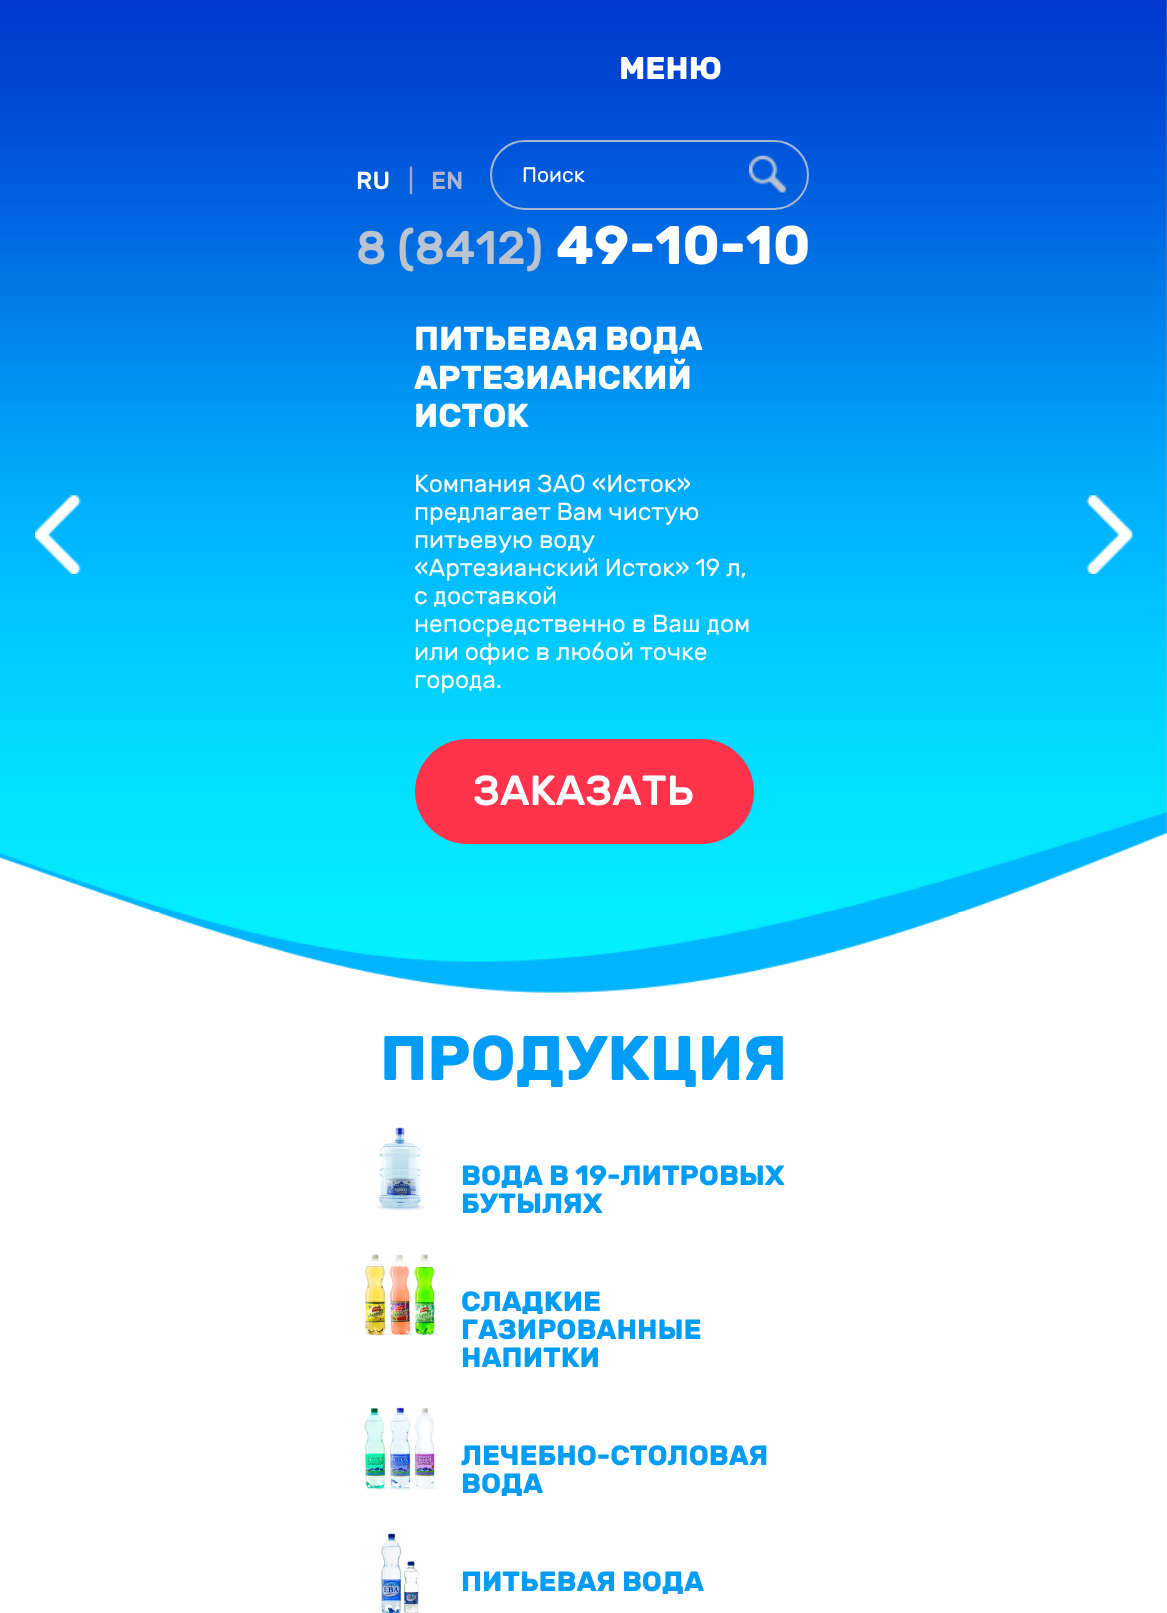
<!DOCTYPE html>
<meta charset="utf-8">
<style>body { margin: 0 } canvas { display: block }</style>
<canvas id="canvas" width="1167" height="1613"></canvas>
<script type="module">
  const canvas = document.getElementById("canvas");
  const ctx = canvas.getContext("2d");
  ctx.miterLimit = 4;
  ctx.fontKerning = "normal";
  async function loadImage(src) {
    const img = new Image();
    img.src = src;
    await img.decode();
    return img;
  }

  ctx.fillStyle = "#ffffff";
  ctx.fillRect(0, 0, 1167, 1613);
  ctx.drawImage(await loadImage("img2.png"), 0, 0, 1167, 993);
  ctx.font = "bold 31.5px Rubik";
  ctx.fillText("МЕНЮ", 619, 79);
  ctx.font = "500 24.5px Rubik";
  ctx.fillText("RU", 356, 189);
  ctx.font = "25px Rubik";
  ctx.fillStyle = "#a8a6cd";
  ctx.fillText("|", 408, 189);
  ctx.font = "500 24.5px Rubik";
  ctx.fillStyle = "#b0b4d0";
  ctx.fillText("EN", 431, 189);
  ctx.beginPath();
  ctx.roundRect(491, 141, 317, 68, 34);
  ctx.strokeStyle = "#a7b6d2";
  ctx.lineWidth = 2;
  ctx.stroke();
  ctx.font = "21px Rubik";
  ctx.fillStyle = "#ffffff";
  ctx.fillText("Поиск", 522, 182);
  ctx.drawImage(await loadImage("img1.png"), 749, 155, 37, 38);
  ctx.font = "500 47px Rubik";
  ctx.fillStyle = "#b9c3d2";
  ctx.fillText("8 (8412)", 356, 264);
  ctx.font = "bold 54.25px Rubik";
  ctx.fillStyle = "#ffffff";
  ctx.fillText("49-10-10", 556, 264);
  ctx.font = "bold 33.25px Rubik";
  ctx.fillText("ПИТЬЕВАЯ ВОДА", 414, 350);
  ctx.fillText("АРТЕЗИАНСКИЙ", 414, 389);
  ctx.fillText("ИСТОК", 414, 427);
  ctx.font = "24.5px Rubik";
  ctx.fillText("Компания ЗАО «Исток»", 414, 492);
  ctx.fillText("предлагает Вам чистую", 414, 520);
  ctx.fillText("питьевую воду", 414, 548);
  ctx.fillText("«Артезианский Исток» 19 л,", 414, 576);
  ctx.fillText("с доставкой", 414, 604);
  ctx.fillText("непосредственно в Ваш дом", 414, 632);
  ctx.fillText("или офис в любой точке", 414, 660);
  ctx.fillText("города.", 414, 688);
  ctx.fillStyle = "#ff344c";
  ctx.beginPath();
  ctx.roundRect(415, 739, 339, 105, 52.5);
  ctx.fill();
  ctx.font = "500 42px Rubik";
  ctx.fillStyle = "#ffffff";
  ctx.fillText("ЗАКАЗАТЬ", 473, 805);
  ctx.drawImage(await loadImage("img3.png"), 35, 495, 46, 79);
  ctx.drawImage(await loadImage("img4.png"), 1086, 495, 47, 79);
  ctx.font = "bold 63px Rubik";
  ctx.fillStyle = "#009cf6";
  ctx.fillText("ПРОДУКЦИЯ", 380, 1080);
  ctx.drawImage(await loadImage("img5.png"), 375, 1127, 51, 84);
  ctx.font = "bold 28px Rubik";
  ctx.fillText("ВОДА В 19-ЛИТРОВЫХ", 461, 1185);
  ctx.fillText("БУТЫЛЯХ", 461, 1213);
  ctx.drawImage(await loadImage("img6.png"), 365, 1254, 74, 82);
  ctx.fillText("СЛАДКИЕ", 461, 1311);
  ctx.fillText("ГАЗИРОВАННЫЕ", 461, 1339);
  ctx.fillText("НАПИТКИ", 461, 1367);
  ctx.drawImage(await loadImage("img7.png"), 364, 1407, 74, 83);
  ctx.fillText("ЛЕЧЕБНО-СТОЛОВАЯ", 461, 1465);
  ctx.fillText("ВОДА", 461, 1493);
  ctx.drawImage(await loadImage("img8.png"), 377, 1533, 44, 80);
  ctx.fillText("ПИТЬЕВАЯ ВОДА", 461, 1591);
</script>
